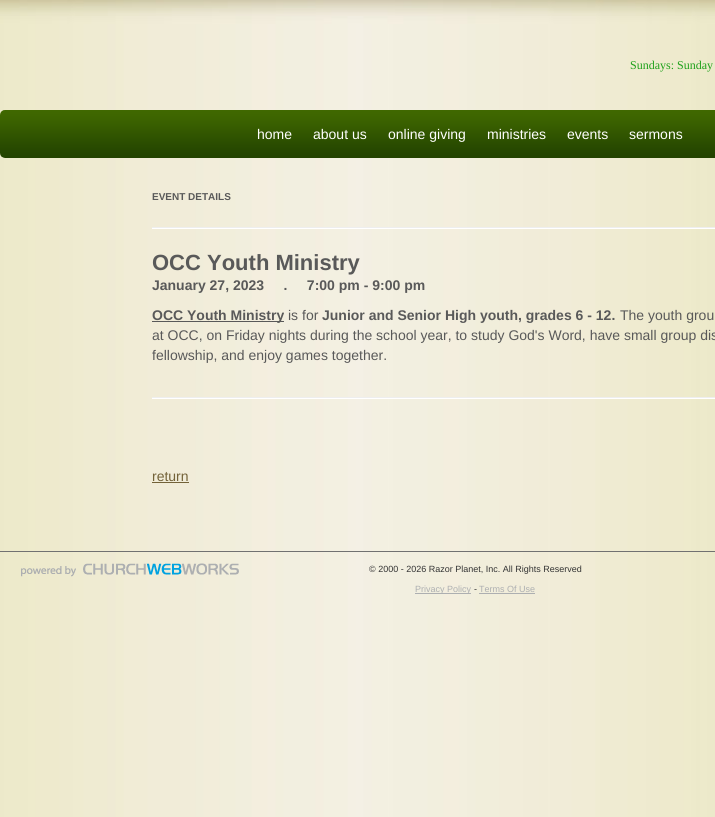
#include <cairo.h>
#include <math.h>
#include <stddef.h>


static void rgb(cairo_t *cr, int r, int g, int b)
{
	cairo_set_source_rgb(cr, r / 255.0, g / 255.0, b / 255.0);
}

static void face(cairo_t *cr, const char *family, double size, int italic, int bold)
{
	cairo_select_font_face(cr, family, italic ? CAIRO_FONT_SLANT_ITALIC : CAIRO_FONT_SLANT_NORMAL,
		bold ? CAIRO_FONT_WEIGHT_BOLD : CAIRO_FONT_WEIGHT_NORMAL);
	cairo_set_font_size(cr, size);
}

static void label(cairo_t *cr, double x, double y, const char *s)
{
	cairo_move_to(cr, x, y);
	cairo_show_text(cr, s);
}

static void rect(cairo_t *cr, double x, double y, double w, double h)
{
	cairo_rectangle(cr, x, y, w, h);
	cairo_fill(cr);
}

static void image(cairo_t *cr, const char *path, double x, double y, double w, double h)
{
	cairo_surface_t *image = cairo_image_surface_create_from_png(path);
	cairo_save(cr);
	cairo_set_source_surface(cr, image, x, y);
	cairo_rectangle(cr, x, y, w, h);
	cairo_fill(cr);
	cairo_restore(cr);
	cairo_surface_destroy(image);
}

static void draw(cairo_t *cr) {
	rgb(cr, 255, 255, 255);
	cairo_paint(cr);
	image(cr, "image0.png", 0, 0, 715, 817);
	face(cr, "Liberation Serif", 12, 0, 0);
	rgb(cr, 30, 161, 26);
	label(cr, 630, 69, "Sundays: Sunday");
	image(cr, "image1.png", 0, 110, 715, 48);
	face(cr, "Liberation Sans", 14, 0, 0);
	rgb(cr, 255, 255, 255);
	label(cr, 257, 139, "home");
	label(cr, 313, 139, "about us");
	label(cr, 388, 139, "online giving");
	label(cr, 487, 139, "ministries");
	label(cr, 567, 139, "events");
	label(cr, 629, 139, "sermons");
	face(cr, "Liberation Sans", 10, 0, 1);
	rgb(cr, 89, 89, 89);
	label(cr, 152, 200, "EVENT DETAILS");
	rgb(cr, 238, 238, 238);
	rect(cr, 152, 227, 563, 1);
	rgb(cr, 255, 255, 255);
	rect(cr, 152, 228, 563, 1);
	face(cr, "Liberation Sans", 22, 0, 1);
	rgb(cr, 89, 89, 89);
	label(cr, 152, 270, "OCC Youth Ministry");
	face(cr, "Liberation Sans", 14, 0, 1);
	label(cr, 152, 290, "January 27, 2023     .     7:00 pm - 9:00 pm");
	rect(cr, 152, 321, 132, 1);
	label(cr, 152, 320, "OCC Youth Ministry");
	face(cr, "Liberation Sans", 14, 0, 0);
	label(cr, 288, 320, "is for");
	face(cr, "Liberation Sans", 14, 0, 1);
	label(cr, 322, 320, "Junior and Senior High youth, grades 6 - 12.");
	face(cr, "Liberation Sans", 14, 0, 0);
	label(cr, 620, 320, "The youth grou");
	label(cr, 152, 340, "at OCC, on Friday nights during the school year, to study God's Word, have small group dis");
	label(cr, 152, 360, "fellowship, and enjoy games together.");
	rgb(cr, 238, 238, 238);
	rect(cr, 152, 397, 563, 1);
	rgb(cr, 255, 255, 255);
	rect(cr, 152, 398, 563, 1);
	rgb(cr, 115, 98, 56);
	label(cr, 152, 481, "return");
	rect(cr, 152, 482, 37, 1);
	rgb(cr, 113, 113, 113);
	rect(cr, 0, 551, 715, 1);
	image(cr, "image2.png", 21, 563, 218, 14);
	face(cr, "Liberation Sans", 9, 0, 0);
	rgb(cr, 51, 51, 51);
	label(cr, 369, 572, "© 2000 - 2026 Razor Planet, Inc. All Rights Reserved");
	rgb(cr, 173, 175, 177);
	rect(cr, 415, 593, 56, 1);
	label(cr, 415, 592, "Privacy Policy");
	rgb(cr, 51, 51, 51);
	label(cr, 474, 592, "-");
	rgb(cr, 173, 175, 177);
	label(cr, 479, 592, "Terms Of Use");
	rect(cr, 479, 593, 56, 1);
}

int main(void) {
	cairo_surface_t *surface = cairo_image_surface_create(CAIRO_FORMAT_RGB24, 715, 817);
	cairo_t *cr = cairo_create(surface);
	cairo_font_options_t *options = cairo_font_options_create();
	cairo_font_options_set_hint_metrics(options, CAIRO_HINT_METRICS_OFF);
	cairo_font_options_set_hint_style(options, CAIRO_HINT_STYLE_NONE);
	cairo_set_font_options(cr, options);
	cairo_set_miter_limit(cr, 4);
	draw(cr);
	cairo_surface_write_to_png(surface, "render.png");
	cairo_font_options_destroy(options);
	cairo_destroy(cr);
	cairo_surface_destroy(surface);
	return 0;
}
